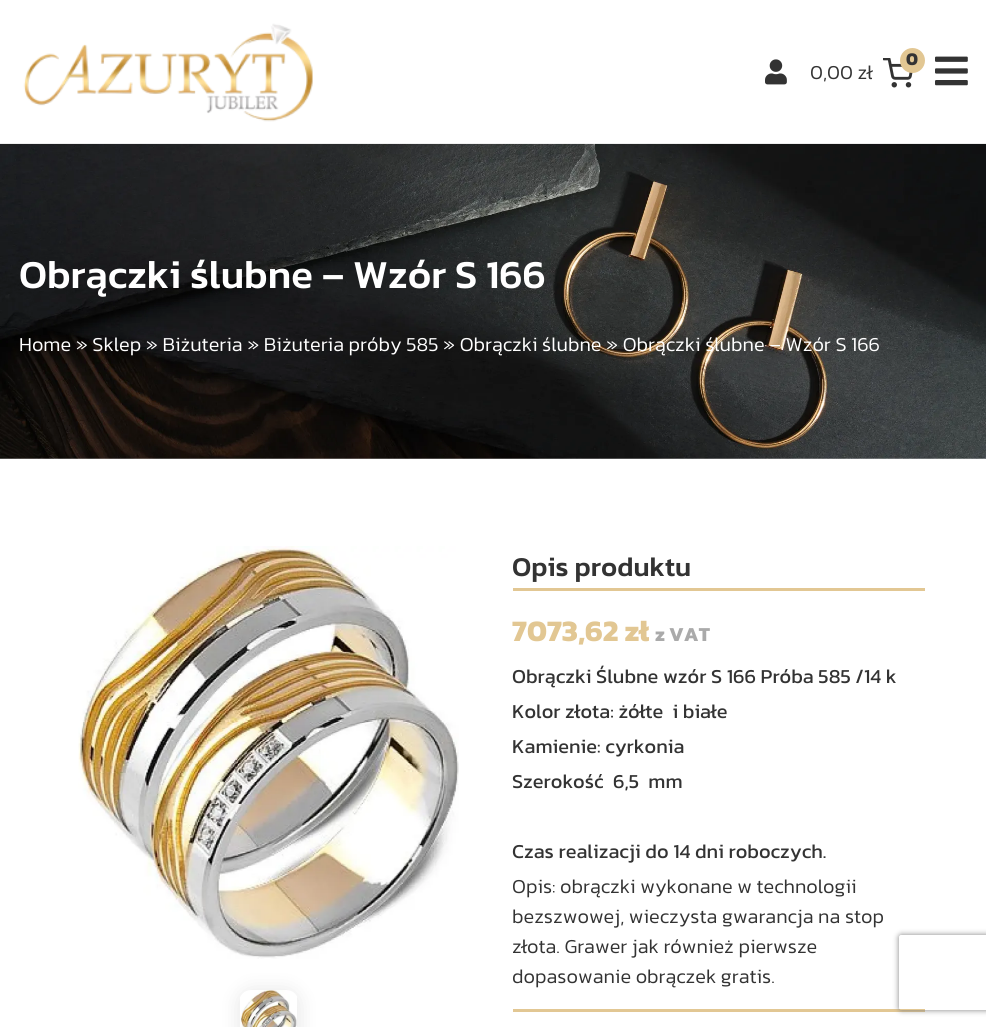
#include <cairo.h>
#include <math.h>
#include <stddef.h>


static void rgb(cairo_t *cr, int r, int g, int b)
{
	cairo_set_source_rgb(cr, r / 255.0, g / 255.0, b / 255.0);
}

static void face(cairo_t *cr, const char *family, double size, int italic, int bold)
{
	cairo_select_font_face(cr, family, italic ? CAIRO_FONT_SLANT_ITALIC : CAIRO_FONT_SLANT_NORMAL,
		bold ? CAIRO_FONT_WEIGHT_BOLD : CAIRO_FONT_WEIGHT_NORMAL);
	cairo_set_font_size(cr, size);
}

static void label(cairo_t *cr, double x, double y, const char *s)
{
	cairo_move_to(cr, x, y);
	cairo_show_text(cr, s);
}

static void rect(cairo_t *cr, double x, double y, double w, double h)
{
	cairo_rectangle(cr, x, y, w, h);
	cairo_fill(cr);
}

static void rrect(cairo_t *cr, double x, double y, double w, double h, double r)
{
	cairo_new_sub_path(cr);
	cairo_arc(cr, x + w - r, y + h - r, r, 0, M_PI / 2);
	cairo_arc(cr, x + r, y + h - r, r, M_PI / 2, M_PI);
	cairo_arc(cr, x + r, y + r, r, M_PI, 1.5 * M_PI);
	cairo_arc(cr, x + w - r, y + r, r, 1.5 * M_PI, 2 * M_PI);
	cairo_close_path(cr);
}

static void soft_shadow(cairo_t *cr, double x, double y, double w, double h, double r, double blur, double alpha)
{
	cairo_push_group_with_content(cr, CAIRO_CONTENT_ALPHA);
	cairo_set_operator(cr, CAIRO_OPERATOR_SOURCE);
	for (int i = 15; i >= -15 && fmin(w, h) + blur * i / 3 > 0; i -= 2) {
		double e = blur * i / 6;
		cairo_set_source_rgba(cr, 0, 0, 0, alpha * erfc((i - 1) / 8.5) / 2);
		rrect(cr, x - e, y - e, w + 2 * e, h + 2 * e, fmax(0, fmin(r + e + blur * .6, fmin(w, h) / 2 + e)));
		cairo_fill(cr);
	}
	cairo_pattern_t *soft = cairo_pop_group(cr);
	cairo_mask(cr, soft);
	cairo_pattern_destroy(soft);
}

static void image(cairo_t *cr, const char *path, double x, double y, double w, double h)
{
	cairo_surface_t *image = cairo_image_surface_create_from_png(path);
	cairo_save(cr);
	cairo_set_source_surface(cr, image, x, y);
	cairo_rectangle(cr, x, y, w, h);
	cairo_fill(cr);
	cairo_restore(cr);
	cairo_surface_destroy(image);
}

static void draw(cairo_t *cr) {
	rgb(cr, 255, 255, 255);
	cairo_paint(cr);
	image(cr, "image4.png", 0, 143, 986, 316);
	cairo_set_source_rgba(cr, 1, 1, 1, 0.7);
	rect(cr, 0, 143, 986, 1);
	image(cr, "image0.png", 23, 23, 290, 99);
	image(cr, "image1.png", 765, 59, 22, 26);
	image(cr, "image2.png", 883, 58, 30, 30);
	rgb(cr, 226, 199, 147);
	cairo_arc(cr, 912.5, 60.5, 11, 0, 2 * M_PI);
	cairo_fill_preserve(cr);
	cairo_set_line_width(cr, 3);
	cairo_stroke(cr);
	face(cr, "Kanit", 18, 0, 1);
	rgb(cr, 51, 51, 51);
	label(cr, 906, 65, "0");
	face(cr, "Kanit Light", 20, 0, 0);
	label(cr, 810, 79, "0,00 zł");
	image(cr, "image3.png", 935, 56, 33, 30);
	face(cr, "Kanit Medium", 40, 0, 0);
	rgb(cr, 255, 255, 255);
	label(cr, 19, 288, "Obrączki ślubne – Wzór S 166");
	face(cr, "Kanit Light", 20, 0, 0);
	label(cr, 19, 351, "Home » Sklep » Biżuteria » Biżuteria próby 585 » Obrączki ślubne » Obrączki ślubne – Wzór S 166");
	image(cr, "image5.png", 78, 546, 381, 413);
	rgb(cr, 0, 0, 0);
	soft_shadow(cr, 239, 990, 60, 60, 13, 9.5, 0.1);
	image(cr, "image6.png", 240, 990, 57, 37);
	rgb(cr, 226, 199, 147);
	rect(cr, 513, 588, 412, 3);
	face(cr, "Kanit Medium", 27.5, 0, 0);
	rgb(cr, 51, 51, 51);
	label(cr, 512, 576, "Opis produktu");
	face(cr, "Kanit", 30, 0, 1);
	rgb(cr, 226, 199, 147);
	label(cr, 512, 641, "7073,62 zł");
	face(cr, "Kanit", 20, 0, 1);
	rgb(cr, 170, 170, 170);
	label(cr, 655, 641, "z VAT");
	rgb(cr, 226, 199, 147);
	rect(cr, 513, 1009, 412, 3);
	face(cr, "Kanit", 20, 0, 0);
	rgb(cr, 51, 51, 51);
	label(cr, 512, 683, "Obrączki Ślubne wzór S 166 Próba 585 /14 k");
	label(cr, 512, 718, "Kolor złota: żółte  i białe");
	label(cr, 512, 753, "Kamienie: cyrkonia");
	label(cr, 512, 788, "Szerokość  6,5  mm");
	label(cr, 512, 858, "Czas realizacji do 14 dni roboczych.");
	face(cr, "Kanit Light", 20, 0, 0);
	label(cr, 512, 893, "Opis: obrączki wykonane w technologii");
	label(cr, 512, 923, "bezszwowej, wieczysta gwarancja na stop");
	label(cr, 512, 953, "złota. Grawer jak również pierwsze");
	label(cr, 512, 983, "dopasowanie obrączek gratis.");
	cairo_save(cr);
	cairo_set_fill_rule(cr, CAIRO_FILL_RULE_EVEN_ODD);
	cairo_new_path(cr);
	cairo_move_to(cr, 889, 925);
	cairo_line_to(cr, 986, 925);
	cairo_line_to(cr, 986, 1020);
	cairo_line_to(cr, 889, 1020);
	cairo_close_path(cr);
	cairo_move_to(cr, 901.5, 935);
	cairo_line_to(cr, 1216.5, 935);
	cairo_curve_to(cr, 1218, 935, 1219, 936, 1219, 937.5);
	cairo_line_to(cr, 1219, 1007.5);
	cairo_curve_to(cr, 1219, 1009, 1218, 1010, 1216.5, 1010);
	cairo_line_to(cr, 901.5, 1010);
	cairo_curve_to(cr, 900, 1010, 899, 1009, 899, 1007.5);
	cairo_line_to(cr, 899, 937.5);
	cairo_curve_to(cr, 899, 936, 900, 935, 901.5, 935);
	cairo_close_path(cr);
	cairo_clip(cr);
	rgb(cr, 128, 128, 128);
	soft_shadow(cr, 899, 935, 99, 75, 2.5, 3, 1);
	cairo_restore(cr);
}

int main(void) {
	cairo_surface_t *surface = cairo_image_surface_create(CAIRO_FORMAT_RGB24, 986, 1027);
	cairo_t *cr = cairo_create(surface);
	cairo_font_options_t *options = cairo_font_options_create();
	cairo_font_options_set_hint_metrics(options, CAIRO_HINT_METRICS_OFF);
	cairo_font_options_set_hint_style(options, CAIRO_HINT_STYLE_NONE);
	cairo_set_font_options(cr, options);
	cairo_set_miter_limit(cr, 4);
	draw(cr);
	cairo_surface_write_to_png(surface, "render.png");
	cairo_font_options_destroy(options);
	cairo_destroy(cr);
	cairo_surface_destroy(surface);
	return 0;
}
